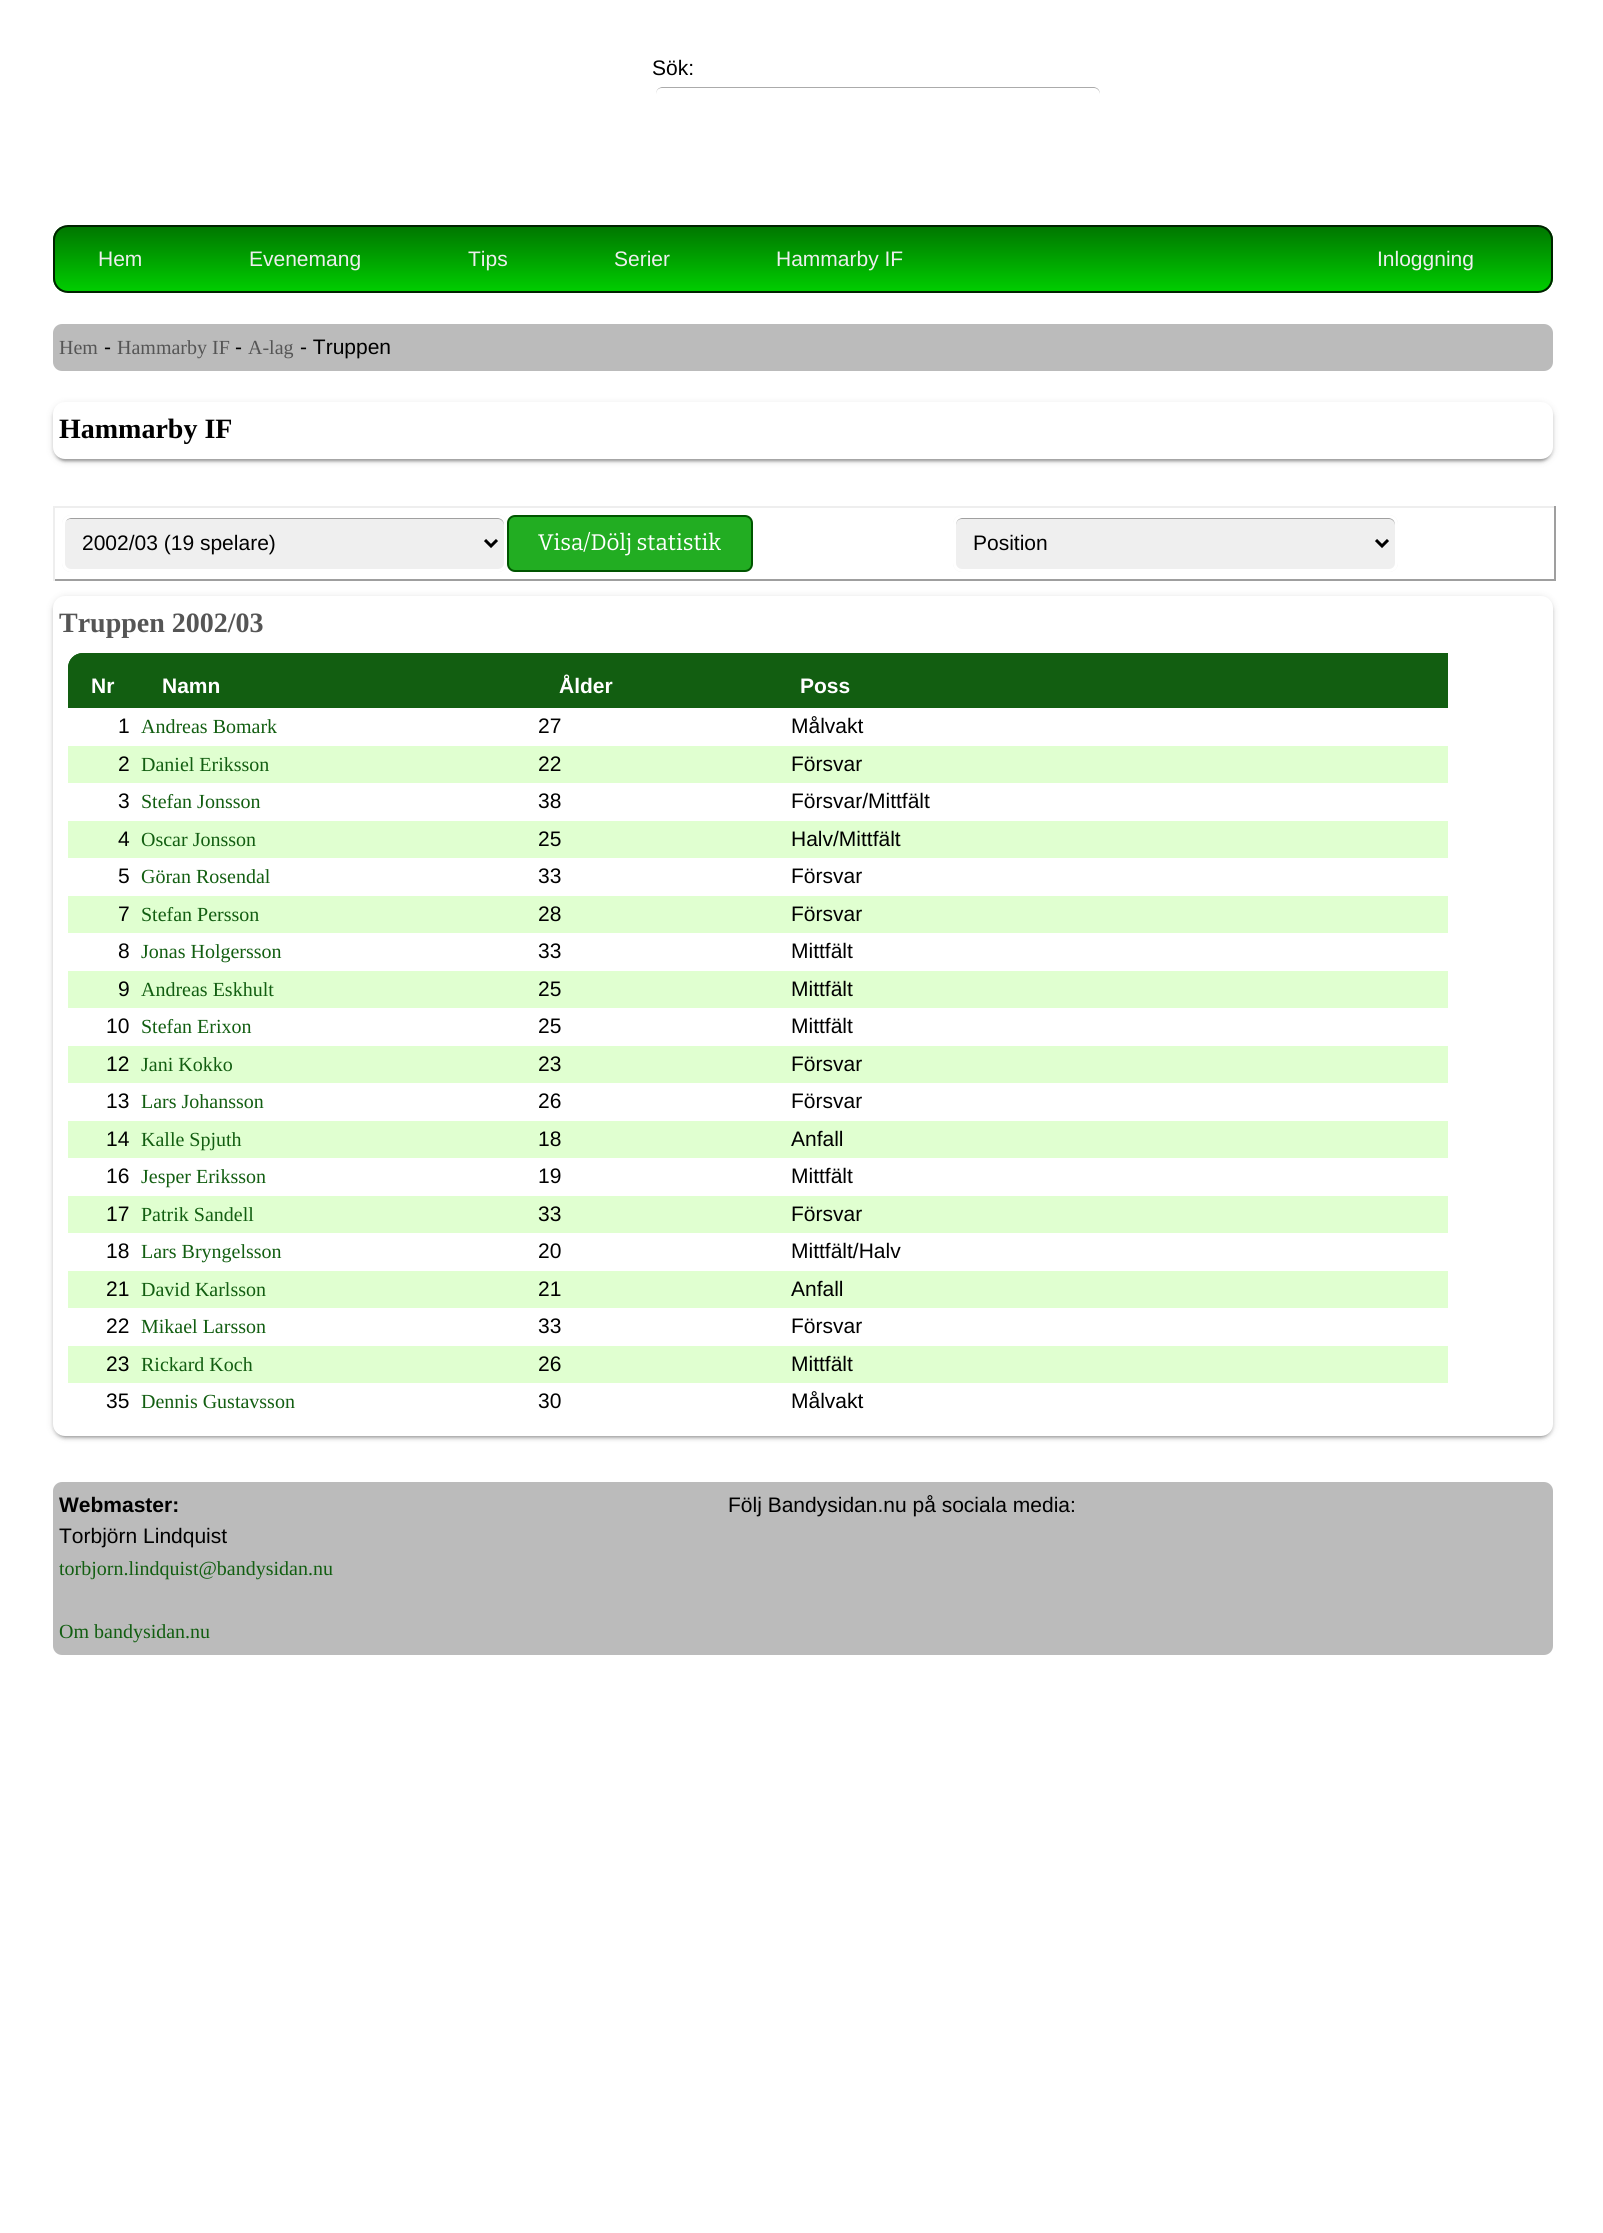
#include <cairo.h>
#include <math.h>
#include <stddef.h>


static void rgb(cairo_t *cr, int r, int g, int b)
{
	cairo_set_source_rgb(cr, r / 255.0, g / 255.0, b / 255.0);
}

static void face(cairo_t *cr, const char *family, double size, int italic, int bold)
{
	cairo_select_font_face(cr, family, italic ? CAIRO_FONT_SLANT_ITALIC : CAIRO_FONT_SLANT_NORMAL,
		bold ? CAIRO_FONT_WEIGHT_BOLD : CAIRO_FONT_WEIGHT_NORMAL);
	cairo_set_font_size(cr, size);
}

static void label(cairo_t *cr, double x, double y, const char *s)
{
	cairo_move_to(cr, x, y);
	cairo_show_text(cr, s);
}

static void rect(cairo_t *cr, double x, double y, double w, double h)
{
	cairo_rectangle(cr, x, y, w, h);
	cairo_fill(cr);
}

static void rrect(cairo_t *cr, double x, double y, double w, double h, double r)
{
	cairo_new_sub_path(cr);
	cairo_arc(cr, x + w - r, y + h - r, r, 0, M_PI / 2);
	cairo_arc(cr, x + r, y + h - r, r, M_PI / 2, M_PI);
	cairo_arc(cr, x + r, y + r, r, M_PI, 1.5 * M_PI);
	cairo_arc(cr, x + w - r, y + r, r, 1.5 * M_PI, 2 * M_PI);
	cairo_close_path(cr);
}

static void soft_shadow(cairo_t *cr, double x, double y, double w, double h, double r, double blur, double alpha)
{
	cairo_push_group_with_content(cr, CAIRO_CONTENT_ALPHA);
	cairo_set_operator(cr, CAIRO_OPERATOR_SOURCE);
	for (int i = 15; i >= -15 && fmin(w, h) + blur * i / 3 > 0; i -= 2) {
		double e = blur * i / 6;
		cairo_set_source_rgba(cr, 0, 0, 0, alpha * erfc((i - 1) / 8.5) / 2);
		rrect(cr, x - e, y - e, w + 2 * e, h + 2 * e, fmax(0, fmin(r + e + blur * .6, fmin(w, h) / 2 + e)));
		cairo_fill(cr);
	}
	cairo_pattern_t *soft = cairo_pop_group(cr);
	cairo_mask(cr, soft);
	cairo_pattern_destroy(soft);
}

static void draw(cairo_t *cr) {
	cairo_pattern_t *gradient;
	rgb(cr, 255, 255, 255);
	cairo_paint(cr);
	face(cr, "Liberation Sans", 21, 0, 0);
	rgb(cr, 0, 0, 0);
	label(cr, 652, 75, "Sök:");
	rgb(cr, 171, 171, 171);
	cairo_new_path(cr);
	cairo_move_to(cr, 662, 88);
	cairo_line_to(cr, 1094, 88);
	cairo_curve_to(cr, 1097, 88, 1100, 91, 1100, 94);
	cairo_line_to(cr, 1100, 93);
	cairo_curve_to(cr, 1100, 90, 1097, 87, 1094, 87);
	cairo_line_to(cr, 662, 87);
	cairo_curve_to(cr, 659, 87, 656, 90, 656, 93);
	cairo_line_to(cr, 656, 94);
	cairo_curve_to(cr, 656, 91, 658, 88, 662, 88);
	cairo_close_path(cr);
	cairo_fill(cr);
	rrect(cr, 654.5, 85.5, 447, 51, 7.5);
	rgb(cr, 255, 255, 255);
	cairo_set_line_width(cr, 3);
	cairo_stroke(cr);
	cairo_save(cr);
	rrect(cr, 53, 225, 1500, 68, 15);
	cairo_clip(cr);
	gradient = cairo_pattern_create_linear(54, 227, 54, 291);
	cairo_pattern_add_color_stop_rgba(gradient, 0, 0, 0.467, 0, 1);
	cairo_pattern_add_color_stop_rgba(gradient, 1, 0, 0.804, 0, 1);
	cairo_set_source(cr, gradient);
	cairo_pattern_destroy(gradient);
	rect(cr, 53, 227, 1500, 64);
	cairo_restore(cr);
	rrect(cr, 54, 226, 1498, 66, 14);
	rgb(cr, 0, 34, 0);
	cairo_set_line_width(cr, 2);
	cairo_stroke(cr);
	rgb(cr, 238, 238, 238);
	label(cr, 98, 266, "Hem");
	label(cr, 249, 266, "Evenemang");
	label(cr, 468, 266, "Tips");
	label(cr, 614, 266, "Serier");
	label(cr, 776, 266, "Hammarby IF");
	label(cr, 1377, 266, "Inloggning");
	rgb(cr, 187, 187, 187);
	rrect(cr, 53, 324, 1500, 47, 9);
	cairo_fill(cr);
	face(cr, "Liberation Serif", 20, 0, 0);
	rgb(cr, 85, 85, 85);
	label(cr, 59, 354, "Hem");
	face(cr, "Liberation Sans", 21, 0, 0);
	rgb(cr, 0, 0, 0);
	label(cr, 104, 354, "-");
	face(cr, "Liberation Serif", 20, 0, 0);
	rgb(cr, 85, 85, 85);
	label(cr, 117, 354, "Hammarby IF");
	face(cr, "Liberation Sans", 21, 0, 0);
	rgb(cr, 0, 0, 0);
	label(cr, 235, 354, "-");
	face(cr, "Liberation Serif", 20, 0, 0);
	rgb(cr, 85, 85, 85);
	label(cr, 248, 354, "A-lag");
	face(cr, "Liberation Sans", 21, 0, 0);
	rgb(cr, 0, 0, 0);
	label(cr, 300, 354, "- Truppen");
	rgb(cr, 0, 0, 0);
	soft_shadow(cr, 56, 410, 1494, 51, 9, 1, 0.2);
	soft_shadow(cr, 53, 404, 1500, 57, 12, 4, 0.12);
	soft_shadow(cr, 53, 405, 1500, 57, 12, 1.5, 0.14);
	rgb(cr, 255, 255, 255);
	rrect(cr, 53, 402, 1500, 57, 12);
	cairo_fill(cr);
	face(cr, "Liberation Serif", 28, 0, 1);
	rgb(cr, 0, 0, 0);
	label(cr, 59, 438, "Hammarby IF");
	rgb(cr, 238, 238, 238);
	rect(cr, 53, 506, 1503, 2);
	rgb(cr, 159, 159, 159);
	rect(cr, 1554, 506, 2, 75);
	rect(cr, 53, 579, 1503, 2);
	rgb(cr, 238, 238, 238);
	rect(cr, 53, 506, 2, 75);
	rgb(cr, 239, 239, 239);
	rrect(cr, 62, 515, 445, 57, 9);
	cairo_fill(cr);
	rgb(cr, 160, 160, 160);
	cairo_new_path(cr);
	cairo_move_to(cr, 70, 519);
	cairo_line_to(cr, 498, 519);
	cairo_curve_to(cr, 501, 519, 504, 522, 504, 525);
	cairo_line_to(cr, 504, 524);
	cairo_curve_to(cr, 504, 521, 501, 518, 498, 518);
	cairo_line_to(cr, 71, 518);
	cairo_curve_to(cr, 69, 518, 67, 519, 66, 521);
	cairo_curve_to(cr, 67, 520, 69, 519, 70, 519);
	cairo_close_path(cr);
	cairo_fill(cr);
	rrect(cr, 63.5, 516.5, 442, 54, 7.5);
	rgb(cr, 255, 255, 255);
	cairo_set_line_width(cr, 3);
	cairo_stroke(cr);
	cairo_new_path(cr);
	cairo_move_to(cr, 485, 540);
	cairo_line_to(cr, 491, 546);
	cairo_line_to(cr, 497, 540);
	rgb(cr, 0, 0, 0);
	cairo_stroke(cr);
	face(cr, "Liberation Sans", 21, 0, 0);
	label(cr, 82, 550, "2002/03 (19 spelare)");
	rgb(cr, 34, 173, 34);
	rrect(cr, 508, 516, 244, 55, 7);
	cairo_fill_preserve(cr);
	rgb(cr, 0, 85, 0);
	cairo_set_line_width(cr, 2);
	cairo_stroke(cr);
	face(cr, "Bitter", 22.5, 0, 0);
	rgb(cr, 255, 255, 255);
	label(cr, 538, 550, "Visa/Dölj statistik");
	rgb(cr, 239, 239, 239);
	rrect(cr, 953, 515, 445, 57, 9);
	cairo_fill(cr);
	rgb(cr, 160, 160, 160);
	cairo_new_path(cr);
	cairo_move_to(cr, 962, 519);
	cairo_line_to(cr, 1389, 519);
	cairo_curve_to(cr, 1392, 519, 1395, 522, 1395, 525);
	cairo_line_to(cr, 1395, 524);
	cairo_curve_to(cr, 1395, 521, 1392, 518, 1389, 518);
	cairo_line_to(cr, 962, 518);
	cairo_curve_to(cr, 959, 518, 956, 521, 956, 524);
	cairo_line_to(cr, 956, 525);
	cairo_curve_to(cr, 956, 522, 958, 519, 962, 519);
	cairo_close_path(cr);
	cairo_fill(cr);
	rrect(cr, 954.5, 516.5, 442, 54, 7.5);
	rgb(cr, 255, 255, 255);
	cairo_set_line_width(cr, 3);
	cairo_stroke(cr);
	cairo_new_path(cr);
	cairo_move_to(cr, 1376, 540);
	cairo_line_to(cr, 1382, 546);
	cairo_line_to(cr, 1388, 540);
	rgb(cr, 0, 0, 0);
	cairo_stroke(cr);
	face(cr, "Liberation Sans", 21, 0, 0);
	label(cr, 973, 550, "Position");
	rgb(cr, 0, 0, 0);
	soft_shadow(cr, 56, 603, 1494, 834, 9, 1, 0.2);
	soft_shadow(cr, 53, 597, 1500, 840, 12, 4, 0.12);
	soft_shadow(cr, 53, 599, 1500, 840, 12, 1.5, 0.14);
	rgb(cr, 255, 255, 255);
	rrect(cr, 53, 596, 1500, 840, 12);
	cairo_fill(cr);
	face(cr, "Liberation Serif", 28, 0, 1);
	rgb(cr, 85, 85, 85);
	label(cr, 59, 632, "Truppen 2002/03");
	rgb(cr, 18, 94, 17);
	cairo_new_path(cr);
	cairo_move_to(cr, 83, 653);
	cairo_line_to(cr, 1448, 653);
	cairo_line_to(cr, 1448, 708);
	cairo_line_to(cr, 68, 708);
	cairo_line_to(cr, 68, 668);
	cairo_curve_to(cr, 68, 659.5, 74.5, 653, 83, 653);
	cairo_close_path(cr);
	cairo_fill(cr);
	cairo_new_path(cr);
	cairo_move_to(cr, 83, 653);
	cairo_line_to(cr, 138, 653);
	cairo_line_to(cr, 138, 708);
	cairo_line_to(cr, 68, 708);
	cairo_line_to(cr, 68, 668);
	cairo_curve_to(cr, 68, 659.5, 74.5, 653, 83, 653);
	cairo_close_path(cr);
	cairo_fill(cr);
	face(cr, "Liberation Sans", 21, 0, 1);
	rgb(cr, 255, 255, 255);
	label(cr, 91, 693, "Nr");
	label(cr, 162, 693, "Namn");
	label(cr, 559, 693, "Ålder");
	label(cr, 800, 693, "Poss");
	face(cr, "Liberation Sans", 21, 0, 0);
	rgb(cr, 0, 0, 0);
	label(cr, 118, 733, "1");
	face(cr, "Liberation Serif", 20, 0, 0);
	rgb(cr, 18, 94, 17);
	label(cr, 141, 733, "Andreas Bomark");
	face(cr, "Liberation Sans", 21, 0, 0);
	rgb(cr, 0, 0, 0);
	label(cr, 538, 733, "27");
	label(cr, 791, 733, "Målvakt");
	rgb(cr, 224, 255, 208);
	rect(cr, 68, 746, 1380, 37);
	rgb(cr, 0, 0, 0);
	label(cr, 118, 771, "2");
	face(cr, "Liberation Serif", 20, 0, 0);
	rgb(cr, 18, 94, 17);
	label(cr, 141, 771, "Daniel Eriksson");
	face(cr, "Liberation Sans", 21, 0, 0);
	rgb(cr, 0, 0, 0);
	label(cr, 538, 771, "22");
	label(cr, 791, 771, "Försvar");
	label(cr, 118, 808, "3");
	face(cr, "Liberation Serif", 20, 0, 0);
	rgb(cr, 18, 94, 17);
	label(cr, 141, 808, "Stefan Jonsson");
	face(cr, "Liberation Sans", 21, 0, 0);
	rgb(cr, 0, 0, 0);
	label(cr, 538, 808, "38");
	label(cr, 791, 808, "Försvar/Mittfält");
	rgb(cr, 224, 255, 208);
	rect(cr, 68, 821, 1380, 37);
	rgb(cr, 0, 0, 0);
	label(cr, 118, 846, "4");
	face(cr, "Liberation Serif", 20, 0, 0);
	rgb(cr, 18, 94, 17);
	label(cr, 141, 846, "Oscar Jonsson");
	face(cr, "Liberation Sans", 21, 0, 0);
	rgb(cr, 0, 0, 0);
	label(cr, 538, 846, "25");
	label(cr, 791, 846, "Halv/Mittfält");
	label(cr, 118, 883, "5");
	face(cr, "Liberation Serif", 20, 0, 0);
	rgb(cr, 18, 94, 17);
	label(cr, 141, 883, "Göran Rosendal");
	face(cr, "Liberation Sans", 21, 0, 0);
	rgb(cr, 0, 0, 0);
	label(cr, 538, 883, "33");
	label(cr, 791, 883, "Försvar");
	rgb(cr, 224, 255, 208);
	rect(cr, 68, 896, 1380, 37);
	rgb(cr, 0, 0, 0);
	label(cr, 118, 921, "7");
	face(cr, "Liberation Serif", 20, 0, 0);
	rgb(cr, 18, 94, 17);
	label(cr, 141, 921, "Stefan Persson");
	face(cr, "Liberation Sans", 21, 0, 0);
	rgb(cr, 0, 0, 0);
	label(cr, 538, 921, "28");
	label(cr, 791, 921, "Försvar");
	label(cr, 118, 958, "8");
	face(cr, "Liberation Serif", 20, 0, 0);
	rgb(cr, 18, 94, 17);
	label(cr, 141, 958, "Jonas Holgersson");
	face(cr, "Liberation Sans", 21, 0, 0);
	rgb(cr, 0, 0, 0);
	label(cr, 538, 958, "33");
	label(cr, 791, 958, "Mittfält");
	rgb(cr, 224, 255, 208);
	rect(cr, 68, 971, 1380, 37);
	rgb(cr, 0, 0, 0);
	label(cr, 118, 996, "9");
	face(cr, "Liberation Serif", 20, 0, 0);
	rgb(cr, 18, 94, 17);
	label(cr, 141, 996, "Andreas Eskhult");
	face(cr, "Liberation Sans", 21, 0, 0);
	rgb(cr, 0, 0, 0);
	label(cr, 538, 996, "25");
	label(cr, 791, 996, "Mittfält");
	label(cr, 106, 1033, "10");
	face(cr, "Liberation Serif", 20, 0, 0);
	rgb(cr, 18, 94, 17);
	label(cr, 141, 1033, "Stefan Erixon");
	face(cr, "Liberation Sans", 21, 0, 0);
	rgb(cr, 0, 0, 0);
	label(cr, 538, 1033, "25");
	label(cr, 791, 1033, "Mittfält");
	rgb(cr, 224, 255, 208);
	rect(cr, 68, 1046, 1380, 37);
	rgb(cr, 0, 0, 0);
	label(cr, 106, 1071, "12");
	face(cr, "Liberation Serif", 20, 0, 0);
	rgb(cr, 18, 94, 17);
	label(cr, 141, 1071, "Jani Kokko");
	face(cr, "Liberation Sans", 21, 0, 0);
	rgb(cr, 0, 0, 0);
	label(cr, 538, 1071, "23");
	label(cr, 791, 1071, "Försvar");
	label(cr, 106, 1108, "13");
	face(cr, "Liberation Serif", 20, 0, 0);
	rgb(cr, 18, 94, 17);
	label(cr, 141, 1108, "Lars Johansson");
	face(cr, "Liberation Sans", 21, 0, 0);
	rgb(cr, 0, 0, 0);
	label(cr, 538, 1108, "26");
	label(cr, 791, 1108, "Försvar");
	rgb(cr, 224, 255, 208);
	rect(cr, 68, 1121, 1380, 37);
	rgb(cr, 0, 0, 0);
	label(cr, 106, 1146, "14");
	face(cr, "Liberation Serif", 20, 0, 0);
	rgb(cr, 18, 94, 17);
	label(cr, 141, 1146, "Kalle Spjuth");
	face(cr, "Liberation Sans", 21, 0, 0);
	rgb(cr, 0, 0, 0);
	label(cr, 538, 1146, "18");
	label(cr, 791, 1146, "Anfall");
	label(cr, 106, 1183, "16");
	face(cr, "Liberation Serif", 20, 0, 0);
	rgb(cr, 18, 94, 17);
	label(cr, 141, 1183, "Jesper Eriksson");
	face(cr, "Liberation Sans", 21, 0, 0);
	rgb(cr, 0, 0, 0);
	label(cr, 538, 1183, "19");
	label(cr, 791, 1183, "Mittfält");
	rgb(cr, 224, 255, 208);
	rect(cr, 68, 1196, 1380, 37);
	rgb(cr, 0, 0, 0);
	label(cr, 106, 1221, "17");
	face(cr, "Liberation Serif", 20, 0, 0);
	rgb(cr, 18, 94, 17);
	label(cr, 141, 1221, "Patrik Sandell");
	face(cr, "Liberation Sans", 21, 0, 0);
	rgb(cr, 0, 0, 0);
	label(cr, 538, 1221, "33");
	label(cr, 791, 1221, "Försvar");
	label(cr, 106, 1258, "18");
	face(cr, "Liberation Serif", 20, 0, 0);
	rgb(cr, 18, 94, 17);
	label(cr, 141, 1258, "Lars Bryngelsson");
	face(cr, "Liberation Sans", 21, 0, 0);
	rgb(cr, 0, 0, 0);
	label(cr, 538, 1258, "20");
	label(cr, 791, 1258, "Mittfält/Halv");
	rgb(cr, 224, 255, 208);
	rect(cr, 68, 1271, 1380, 37);
	rgb(cr, 0, 0, 0);
	label(cr, 106, 1296, "21");
	face(cr, "Liberation Serif", 20, 0, 0);
	rgb(cr, 18, 94, 17);
	label(cr, 141, 1296, "David Karlsson");
	face(cr, "Liberation Sans", 21, 0, 0);
	rgb(cr, 0, 0, 0);
	label(cr, 538, 1296, "21");
	label(cr, 791, 1296, "Anfall");
	label(cr, 106, 1333, "22");
	face(cr, "Liberation Serif", 20, 0, 0);
	rgb(cr, 18, 94, 17);
	label(cr, 141, 1333, "Mikael Larsson");
	face(cr, "Liberation Sans", 21, 0, 0);
	rgb(cr, 0, 0, 0);
	label(cr, 538, 1333, "33");
	label(cr, 791, 1333, "Försvar");
	rgb(cr, 224, 255, 208);
	rect(cr, 68, 1346, 1380, 37);
	rgb(cr, 0, 0, 0);
	label(cr, 106, 1371, "23");
	face(cr, "Liberation Serif", 20, 0, 0);
	rgb(cr, 18, 94, 17);
	label(cr, 141, 1371, "Rickard Koch");
	face(cr, "Liberation Sans", 21, 0, 0);
	rgb(cr, 0, 0, 0);
	label(cr, 538, 1371, "26");
	label(cr, 791, 1371, "Mittfält");
	label(cr, 106, 1408, "35");
	face(cr, "Liberation Serif", 20, 0, 0);
	rgb(cr, 18, 94, 17);
	label(cr, 141, 1408, "Dennis Gustavsson");
	face(cr, "Liberation Sans", 21, 0, 0);
	rgb(cr, 0, 0, 0);
	label(cr, 538, 1408, "30");
	label(cr, 791, 1408, "Målvakt");
	rgb(cr, 187, 187, 187);
	rrect(cr, 53, 1482, 1500, 173, 9);
	cairo_fill(cr);
	face(cr, "Liberation Sans", 21, 0, 1);
	rgb(cr, 0, 0, 0);
	label(cr, 59, 1512, "Webmaster:");
	face(cr, "Liberation Sans", 21, 0, 0);
	label(cr, 59, 1543, "Torbjörn Lindquist");
	face(cr, "Liberation Serif", 20, 0, 0);
	rgb(cr, 18, 94, 17);
	label(cr, 59, 1575, "torbjorn.lindquist@bandysidan.nu");
	label(cr, 59, 1638, "Om bandysidan.nu");
	face(cr, "Liberation Sans", 21, 0, 0);
	rgb(cr, 0, 0, 0);
	label(cr, 728, 1512, "Följ Bandysidan.nu på sociala media:");
}

int main(void) {
	cairo_surface_t *surface = cairo_image_surface_create(CAIRO_FORMAT_RGB24, 1603, 2233);
	cairo_t *cr = cairo_create(surface);
	cairo_font_options_t *options = cairo_font_options_create();
	cairo_font_options_set_hint_metrics(options, CAIRO_HINT_METRICS_OFF);
	cairo_font_options_set_hint_style(options, CAIRO_HINT_STYLE_NONE);
	cairo_set_font_options(cr, options);
	cairo_set_miter_limit(cr, 4);
	draw(cr);
	cairo_surface_write_to_png(surface, "render.png");
	cairo_font_options_destroy(options);
	cairo_destroy(cr);
	cairo_surface_destroy(surface);
	return 0;
}
